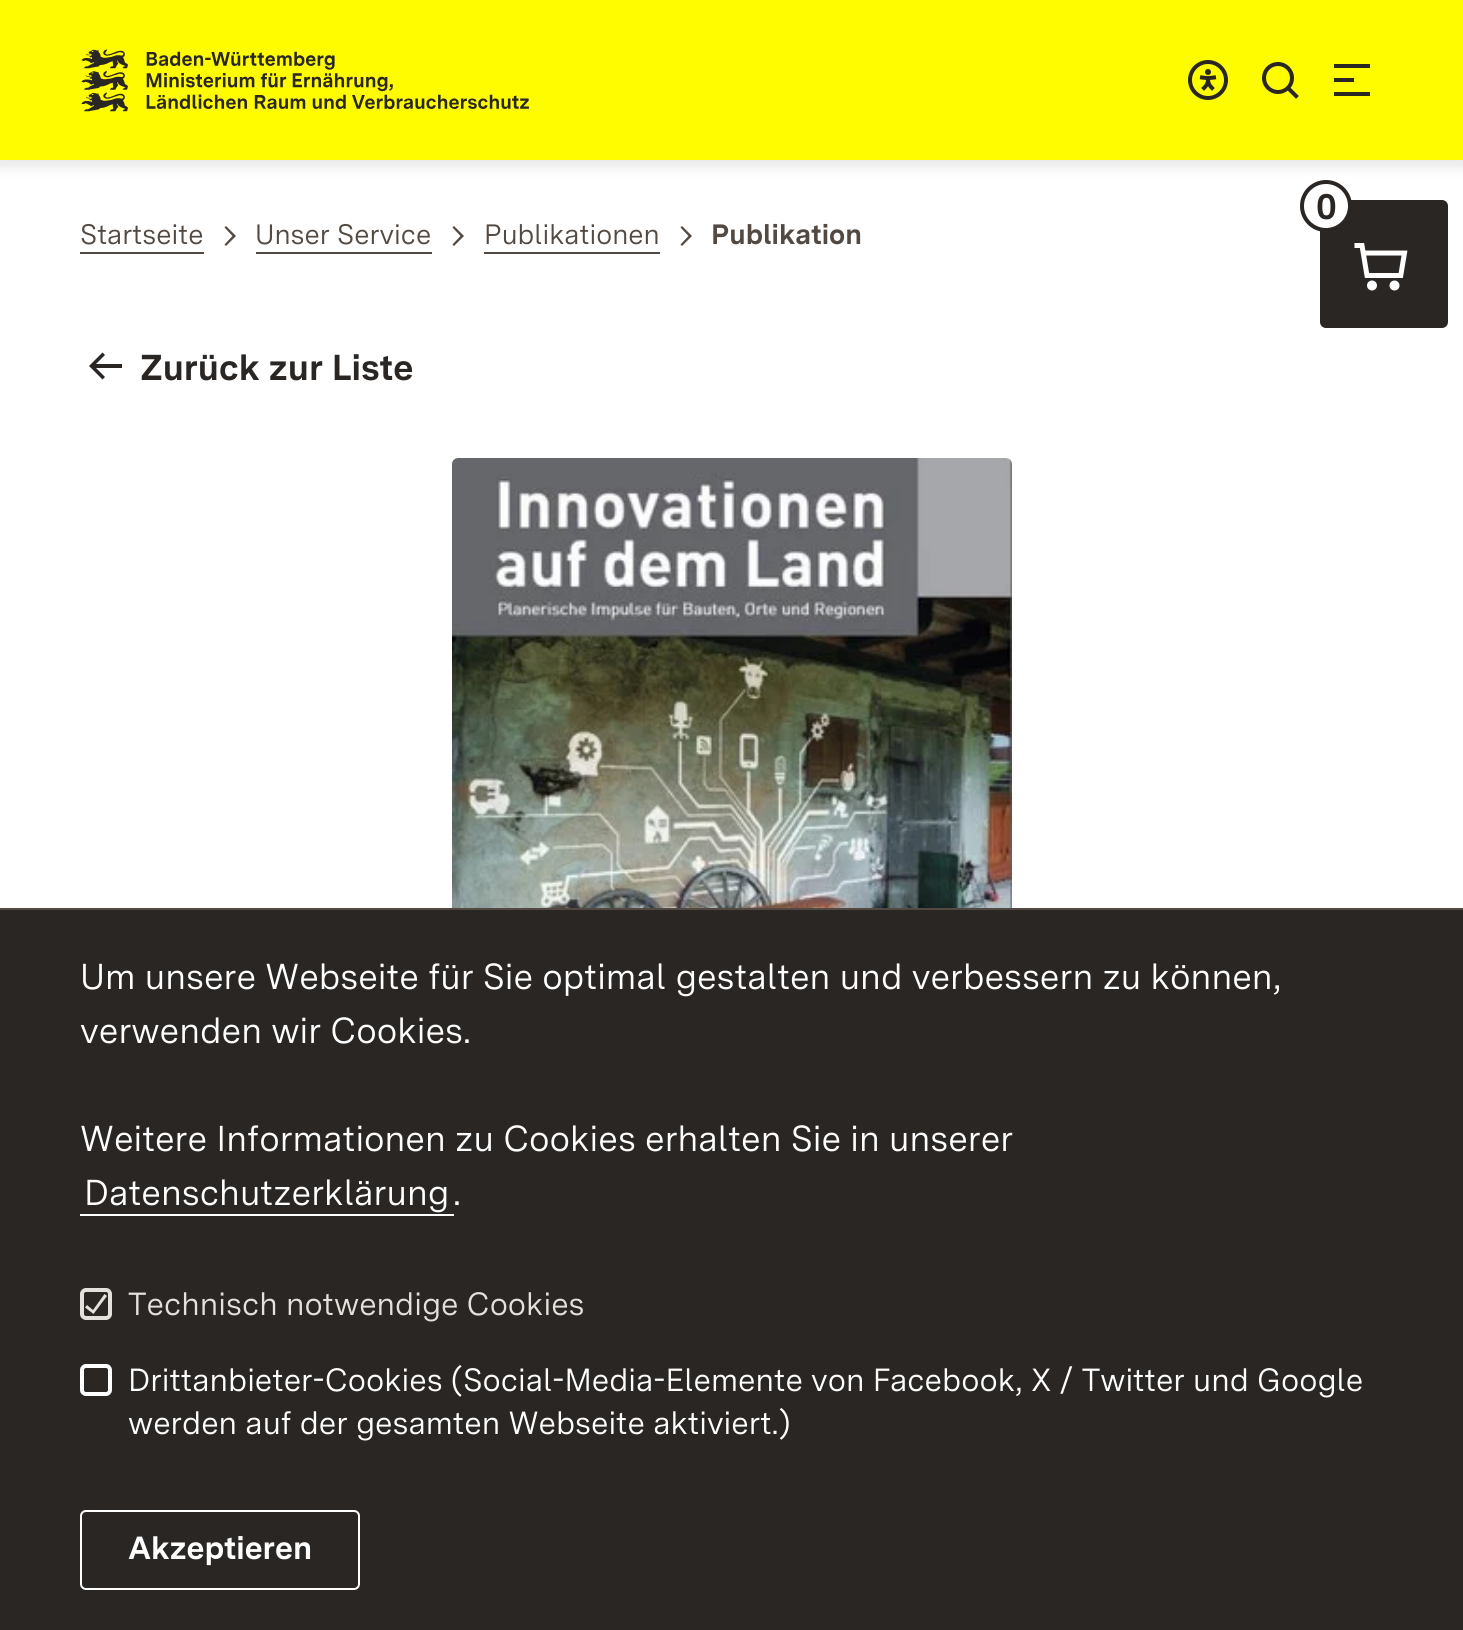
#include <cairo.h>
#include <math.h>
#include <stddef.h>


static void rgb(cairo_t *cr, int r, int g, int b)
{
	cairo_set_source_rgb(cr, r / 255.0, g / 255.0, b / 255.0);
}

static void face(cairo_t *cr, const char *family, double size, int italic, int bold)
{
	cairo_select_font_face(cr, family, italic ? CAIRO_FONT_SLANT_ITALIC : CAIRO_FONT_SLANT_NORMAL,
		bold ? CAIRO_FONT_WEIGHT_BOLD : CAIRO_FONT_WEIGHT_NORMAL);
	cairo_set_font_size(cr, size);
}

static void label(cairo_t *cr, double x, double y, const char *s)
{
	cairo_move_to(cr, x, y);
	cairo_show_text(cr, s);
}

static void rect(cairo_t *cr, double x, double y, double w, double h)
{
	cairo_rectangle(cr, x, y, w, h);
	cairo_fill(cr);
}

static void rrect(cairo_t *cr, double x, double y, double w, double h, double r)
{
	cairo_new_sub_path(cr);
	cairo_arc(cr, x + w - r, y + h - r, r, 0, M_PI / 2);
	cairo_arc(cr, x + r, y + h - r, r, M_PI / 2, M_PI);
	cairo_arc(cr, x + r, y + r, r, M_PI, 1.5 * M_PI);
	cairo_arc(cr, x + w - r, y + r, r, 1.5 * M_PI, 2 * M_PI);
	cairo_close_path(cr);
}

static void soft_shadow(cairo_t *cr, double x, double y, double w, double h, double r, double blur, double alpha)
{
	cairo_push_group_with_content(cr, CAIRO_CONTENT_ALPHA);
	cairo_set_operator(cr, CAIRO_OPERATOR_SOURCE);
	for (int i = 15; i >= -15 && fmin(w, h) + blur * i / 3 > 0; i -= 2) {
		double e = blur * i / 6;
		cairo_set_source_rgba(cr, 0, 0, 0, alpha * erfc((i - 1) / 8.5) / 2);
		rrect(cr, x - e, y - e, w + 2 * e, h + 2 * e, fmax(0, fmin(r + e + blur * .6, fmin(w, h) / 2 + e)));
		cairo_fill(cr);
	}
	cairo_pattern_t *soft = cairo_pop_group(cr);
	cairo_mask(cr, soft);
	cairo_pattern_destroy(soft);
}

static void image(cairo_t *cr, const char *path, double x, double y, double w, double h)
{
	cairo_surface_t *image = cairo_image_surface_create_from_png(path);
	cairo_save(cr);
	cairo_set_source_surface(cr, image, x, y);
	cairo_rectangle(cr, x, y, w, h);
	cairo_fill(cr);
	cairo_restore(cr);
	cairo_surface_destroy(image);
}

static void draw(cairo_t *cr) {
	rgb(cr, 255, 255, 255);
	cairo_paint(cr);
	rgb(cr, 42, 38, 35);
	rrect(cr, 1320, 200, 128, 128, 6);
	cairo_fill(cr);
	rgb(cr, 255, 255, 255);
	cairo_arc(cr, 1326, 206, 24, 0, 2 * M_PI);
	cairo_fill_preserve(cr);
	rgb(cr, 42, 38, 35);
	cairo_set_line_width(cr, 4);
	cairo_stroke(cr);
	rgb(cr, 42, 38, 35);
	soft_shadow(cr, -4, 0, 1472, 168, 0, 6, 0.1);
	rgb(cr, 255, 252, 0);
	rect(cr, 0, 0, 1463, 160);
	image(cr, "image0.png", 81, 49, 448, 63);
	image(cr, "image1.png", 1188, 60, 40, 40);
	image(cr, "image2.png", 1262, 62, 37, 37);
	rgb(cr, 42, 38, 35);
	cairo_set_fill_rule(cr, CAIRO_FILL_RULE_EVEN_ODD);
	cairo_new_path(cr);
	cairo_move_to(cr, 1334, 64);
	cairo_line_to(cr, 1370, 64);
	cairo_line_to(cr, 1370, 68);
	cairo_line_to(cr, 1334, 68);
	cairo_close_path(cr);
	cairo_move_to(cr, 1334, 78);
	cairo_line_to(cr, 1354, 78);
	cairo_line_to(cr, 1354, 82);
	cairo_line_to(cr, 1334, 82);
	cairo_close_path(cr);
	cairo_move_to(cr, 1334, 92);
	cairo_line_to(cr, 1370, 92);
	cairo_line_to(cr, 1370, 96);
	cairo_line_to(cr, 1334, 96);
	cairo_close_path(cr);
	cairo_fill(cr);
	face(cr, "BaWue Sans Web", 36, 0, 1);
	label(cr, 1316, 219, "0");
	image(cr, "image3.png", 1354, 243, 54, 48);
	cairo_new_path(cr);
	cairo_move_to(cr, 105, 355);
	cairo_line_to(cr, 96, 364);
	cairo_line_to(cr, 122, 364);
	cairo_line_to(cr, 122, 368);
	cairo_line_to(cr, 96, 368);
	cairo_line_to(cr, 105, 377);
	cairo_line_to(cr, 102.5, 379.5);
	cairo_line_to(cr, 89, 366);
	cairo_line_to(cr, 102.5, 352.5);
	cairo_close_path(cr);
	cairo_fill(cr);
	label(cr, 140, 380, "Zurück zur Liste");
	image(cr, "image4.png", 452, 458, 560, 450);
	rgb(cr, 82, 73, 66);
	rect(cr, 80, 252, 124, 2);
	face(cr, "BaWue Sans Web", 28, 0, 0);
	label(cr, 80, 244, "Startseite");
	cairo_set_fill_rule(cr, CAIRO_FILL_RULE_WINDING);
	cairo_new_path(cr);
	cairo_move_to(cr, 232.5, 236);
	cairo_line_to(cr, 224.5, 227.5);
	cairo_line_to(cr, 226, 226);
	cairo_line_to(cr, 236, 236);
	cairo_line_to(cr, 226, 246);
	cairo_line_to(cr, 224.5, 244.5);
	cairo_close_path(cr);
	cairo_fill(cr);
	rect(cr, 256, 252, 176, 2);
	label(cr, 255, 244, "Unser Service");
	cairo_new_path(cr);
	cairo_move_to(cr, 460.5, 236);
	cairo_line_to(cr, 452.5, 227.5);
	cairo_line_to(cr, 454, 226);
	cairo_line_to(cr, 464, 236);
	cairo_line_to(cr, 454, 246);
	cairo_line_to(cr, 452.5, 244.5);
	cairo_close_path(cr);
	cairo_fill(cr);
	rect(cr, 484, 252, 176, 2);
	label(cr, 484, 244, "Publikationen");
	cairo_new_path(cr);
	cairo_move_to(cr, 688.5, 236);
	cairo_line_to(cr, 680.5, 227.5);
	cairo_line_to(cr, 682, 226);
	cairo_line_to(cr, 692, 236);
	cairo_line_to(cr, 682, 246);
	cairo_line_to(cr, 680.5, 244.5);
	cairo_close_path(cr);
	cairo_fill(cr);
	face(cr, "BaWue Sans Web", 28, 0, 1);
	label(cr, 711, 244, "Publikation");
	rgb(cr, 42, 38, 35);
	rect(cr, 0, 910, 1463, 720);
	rgb(cr, 82, 73, 66);
	rect(cr, 0, 908, 1463, 2);
	face(cr, "BaWue Sans Web", 36, 0, 0);
	rgb(cr, 255, 255, 255);
	label(cr, 80, 989, "Um unsere Webseite für Sie optimal gestalten und verbessern zu können,");
	label(cr, 80, 1043, "verwenden wir Cookies.");
	label(cr, 80, 1151, "Weitere Informationen zu Cookies erhalten Sie in unserer");
	label(cr, 84, 1205, "Datenschutzerklärung");
	rect(cr, 80, 1214, 374, 2);
	label(cr, 453, 1205, ".");
	rrect(cr, 82, 1290, 28, 28, 4);
	rgb(cr, 228, 225, 220);
	cairo_stroke(cr);
	cairo_set_fill_rule(cr, CAIRO_FILL_RULE_EVEN_ODD);
	cairo_new_path(cr);
	cairo_move_to(cr, 107, 1296);
	cairo_line_to(cr, 93.5, 1314);
	cairo_line_to(cr, 85, 1307.5);
	cairo_line_to(cr, 87, 1305);
	cairo_line_to(cr, 93, 1310);
	cairo_line_to(cr, 104.5, 1294);
	cairo_close_path(cr);
	cairo_fill(cr);
	face(cr, "BaWue Sans Web", 32, 0, 0);
	label(cr, 128, 1315, "Technisch notwendige Cookies");
	rrect(cr, 82, 1366, 28, 28, 4);
	rgb(cr, 255, 255, 255);
	cairo_stroke(cr);
	label(cr, 128, 1391, "Drittanbieter-Cookies (Social-Media-Elemente von Facebook, X / Twitter und Google");
	label(cr, 128, 1434, "werden auf der gesamten Webseite aktiviert.)");
	rrect(cr, 81, 1511, 278, 78, 5);
	cairo_set_line_width(cr, 2);
	cairo_stroke(cr);
	face(cr, "BaWue Sans Web", 32, 0, 1);
	label(cr, 128, 1559, "Akzeptieren");
}

int main(void) {
	cairo_surface_t *surface = cairo_image_surface_create(CAIRO_FORMAT_RGB24, 1463, 1630);
	cairo_t *cr = cairo_create(surface);
	cairo_font_options_t *options = cairo_font_options_create();
	cairo_font_options_set_hint_metrics(options, CAIRO_HINT_METRICS_OFF);
	cairo_font_options_set_hint_style(options, CAIRO_HINT_STYLE_NONE);
	cairo_set_font_options(cr, options);
	cairo_set_miter_limit(cr, 4);
	draw(cr);
	cairo_surface_write_to_png(surface, "render.png");
	cairo_font_options_destroy(options);
	cairo_destroy(cr);
	cairo_surface_destroy(surface);
	return 0;
}
